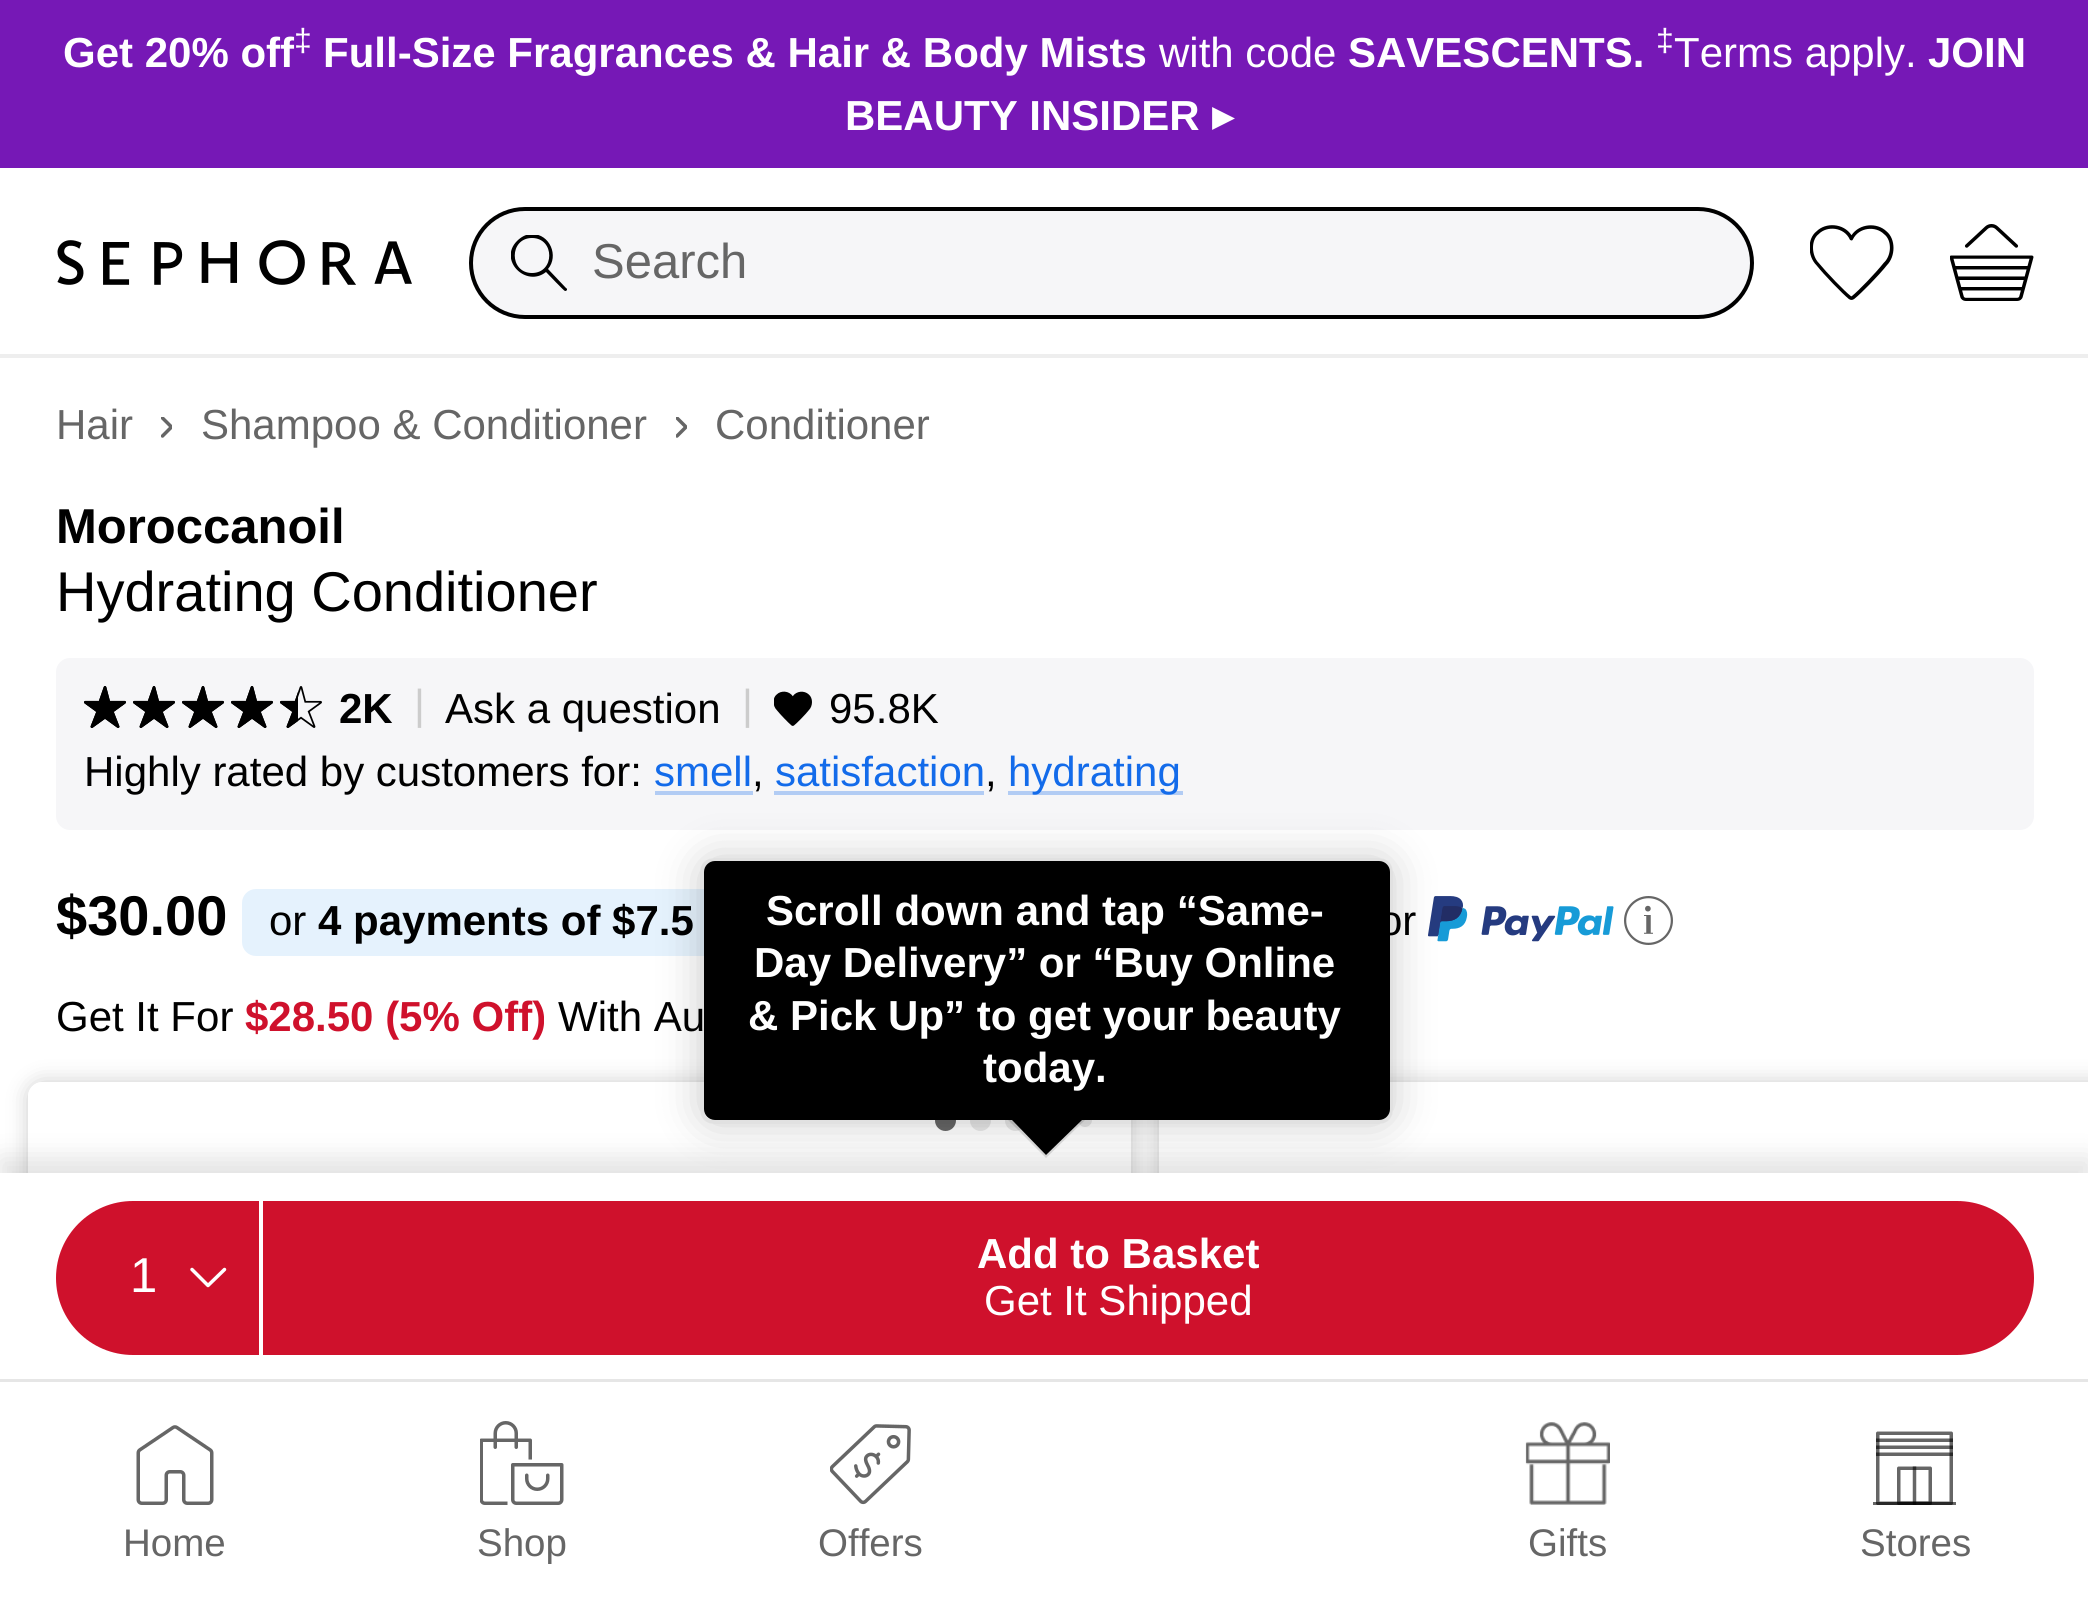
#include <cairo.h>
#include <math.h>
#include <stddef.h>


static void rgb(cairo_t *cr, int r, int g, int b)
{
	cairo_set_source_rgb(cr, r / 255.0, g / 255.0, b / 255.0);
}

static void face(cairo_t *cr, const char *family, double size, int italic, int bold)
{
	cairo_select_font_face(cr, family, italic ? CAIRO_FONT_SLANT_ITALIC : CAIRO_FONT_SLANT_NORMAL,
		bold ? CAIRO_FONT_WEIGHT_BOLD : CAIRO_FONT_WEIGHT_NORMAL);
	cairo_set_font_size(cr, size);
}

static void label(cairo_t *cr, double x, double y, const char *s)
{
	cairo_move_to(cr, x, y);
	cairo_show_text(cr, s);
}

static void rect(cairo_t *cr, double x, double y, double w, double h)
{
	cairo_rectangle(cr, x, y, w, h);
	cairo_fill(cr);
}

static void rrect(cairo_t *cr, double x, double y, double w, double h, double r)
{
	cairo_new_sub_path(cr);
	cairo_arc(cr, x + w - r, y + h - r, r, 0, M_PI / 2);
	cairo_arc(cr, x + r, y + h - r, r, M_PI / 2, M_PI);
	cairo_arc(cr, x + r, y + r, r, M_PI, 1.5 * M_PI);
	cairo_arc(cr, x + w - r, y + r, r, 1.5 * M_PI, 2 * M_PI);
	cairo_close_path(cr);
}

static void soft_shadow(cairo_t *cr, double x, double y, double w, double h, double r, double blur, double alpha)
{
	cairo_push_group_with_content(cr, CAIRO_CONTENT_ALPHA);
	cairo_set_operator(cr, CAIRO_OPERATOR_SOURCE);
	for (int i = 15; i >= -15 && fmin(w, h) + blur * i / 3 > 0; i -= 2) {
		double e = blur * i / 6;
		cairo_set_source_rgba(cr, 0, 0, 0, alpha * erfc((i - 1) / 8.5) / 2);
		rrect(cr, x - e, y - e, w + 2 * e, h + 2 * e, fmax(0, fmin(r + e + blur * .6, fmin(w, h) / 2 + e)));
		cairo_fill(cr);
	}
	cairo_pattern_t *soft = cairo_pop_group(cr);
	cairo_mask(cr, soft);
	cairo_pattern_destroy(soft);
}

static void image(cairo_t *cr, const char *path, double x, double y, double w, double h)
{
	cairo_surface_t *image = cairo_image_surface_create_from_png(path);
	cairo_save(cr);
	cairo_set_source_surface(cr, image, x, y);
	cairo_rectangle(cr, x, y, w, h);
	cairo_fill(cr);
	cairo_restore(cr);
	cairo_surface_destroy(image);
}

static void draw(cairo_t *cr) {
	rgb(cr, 255, 255, 255);
	cairo_paint(cr);
	rgb(cr, 118, 24, 182);
	rect(cr, 0, 0, 2088, 168);
	face(cr, "Liberation Sans", 42, 0, 1);
	rgb(cr, 255, 255, 255);
	label(cr, 63, 67, "Get 20% off");
	face(cr, "Liberation Sans", 32, 0, 0);
	label(cr, 294, 51, "‡");
	face(cr, "Liberation Sans", 42, 0, 1);
	label(cr, 323, 67, "Full-Size Fragrances & Hair & Body Mists");
	face(cr, "Liberation Sans", 42, 0, 0);
	label(cr, 1159, 67, "with code");
	face(cr, "Liberation Sans", 42, 0, 1);
	label(cr, 1348, 67, "SAVESCENTS.");
	face(cr, "Liberation Sans", 32, 0, 0);
	label(cr, 1656, 51, "‡");
	face(cr, "Liberation Sans", 42, 0, 0);
	label(cr, 1674, 67, "Terms apply.");
	face(cr, "Liberation Sans", 42, 0, 1);
	label(cr, 1928, 67, "JOIN");
	label(cr, 845, 130, "BEAUTY INSIDER");
	face(cr, "DejaVu Sans", 42, 0, 1);
	label(cr, 1212, 130, "▸");
	rgb(cr, 238, 238, 238);
	rect(cr, 0, 354, 2088, 4);
	image(cr, "image0.png", 57, 240, 355, 45);
	rgb(cr, 246, 246, 248);
	rrect(cr, 471, 209, 1281, 108, 54);
	cairo_fill_preserve(cr);
	rgb(cr, 0, 0, 0);
	cairo_set_line_width(cr, 4);
	cairo_stroke(cr);
	cairo_save(cr);
	cairo_rectangle(cr, 511, 235, 56, 56);
	cairo_clip(cr);
	cairo_new_path(cr);
	cairo_move_to(cr, 532, 234);
	cairo_curve_to(cr, 550, 234, 559, 256, 548, 269);
	cairo_line_to(cr, 566, 288);
	cairo_curve_to(cr, 568, 289, 567, 291, 565, 291);
	cairo_curve_to(cr, 564, 291, 548, 274, 546, 272);
	cairo_curve_to(cr, 526, 288, 498, 260, 517, 241);
	cairo_curve_to(cr, 521, 237, 526, 234, 532, 234);
	cairo_close_path(cr);
	cairo_move_to(cr, 532, 238);
	cairo_curve_to(cr, 509, 238, 509, 273, 532, 273);
	cairo_curve_to(cr, 555, 273, 555, 238, 532, 238);
	cairo_close_path(cr);
	cairo_fill(cr);
	cairo_restore(cr);
	face(cr, "Liberation Sans", 49, 0, 0);
	rgb(cr, 102, 102, 102);
	label(cr, 592, 278, "Search");
	image(cr, "image1.png", 1810, 225, 84, 75);
	image(cr, "image2.png", 1950, 224, 84, 77);
	rgb(cr, 229, 242, 253);
	rrect(cr, 242, 889, 591, 67, 14);
	cairo_fill(cr);
	rgb(cr, 246, 246, 248);
	rrect(cr, 56, 658, 1978, 172, 14);
	cairo_fill(cr);
	rgb(cr, 178, 204, 244);
	rect(cr, 655, 791, 98, 4);
	rect(cr, 774, 791, 210, 4);
	rect(cr, 1008, 791, 175, 4);
	image(cr, "image12.png", 1428, 896, 186, 46);
	cairo_save(cr);
	cairo_set_fill_rule(cr, CAIRO_FILL_RULE_EVEN_ODD);
	cairo_new_path(cr);
	cairo_move_to(cr, 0, 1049);
	cairo_line_to(cr, 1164, 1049);
	cairo_line_to(cr, 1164, 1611);
	cairo_line_to(cr, 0, 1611);
	cairo_close_path(cr);
	cairo_move_to(cr, 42, 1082);
	cairo_line_to(cr, 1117, 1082);
	cairo_curve_to(cr, 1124.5, 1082, 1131, 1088.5, 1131, 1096);
	cairo_line_to(cr, 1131, 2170);
	cairo_curve_to(cr, 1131, 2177.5, 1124.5, 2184, 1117, 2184);
	cairo_line_to(cr, 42, 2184);
	cairo_curve_to(cr, 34.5, 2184, 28, 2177.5, 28, 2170);
	cairo_line_to(cr, 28, 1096);
	cairo_curve_to(cr, 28, 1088.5, 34.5, 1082, 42, 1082);
	cairo_close_path(cr);
	cairo_clip(cr);
	rgb(cr, 0, 0, 0);
	soft_shadow(cr, 28, 1082, 1103, 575, 14, 10.5, 0.2);
	cairo_restore(cr);
	rgb(cr, 102, 102, 102);
	cairo_arc(cr, 945.5, 1120.5, 10.5, 0, 2 * M_PI);
	cairo_fill(cr);
	rgb(cr, 231, 231, 231);
	cairo_arc(cr, 980.5, 1120.5, 10.5, 0, 2 * M_PI);
	cairo_fill(cr);
	cairo_arc(cr, 1015.5, 1120.5, 10.5, 0, 2 * M_PI);
	cairo_fill(cr);
	cairo_arc(cr, 1085, 1120, 7, 0, 2 * M_PI);
	cairo_fill(cr);
	cairo_save(cr);
	cairo_set_fill_rule(cr, CAIRO_FILL_RULE_EVEN_ODD);
	cairo_new_path(cr);
	cairo_move_to(cr, 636, 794);
	cairo_line_to(cr, 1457, 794);
	cairo_line_to(cr, 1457, 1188);
	cairo_line_to(cr, 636, 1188);
	cairo_close_path(cr);
	cairo_move_to(cr, 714, 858);
	cairo_line_to(cr, 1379, 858);
	cairo_curve_to(cr, 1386.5, 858, 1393, 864.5, 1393, 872);
	cairo_line_to(cr, 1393, 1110);
	cairo_curve_to(cr, 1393, 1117.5, 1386.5, 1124, 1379, 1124);
	cairo_line_to(cr, 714, 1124);
	cairo_curve_to(cr, 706.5, 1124, 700, 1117.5, 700, 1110);
	cairo_line_to(cr, 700, 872);
	cairo_curve_to(cr, 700, 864.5, 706.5, 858, 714, 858);
	cairo_close_path(cr);
	cairo_clip(cr);
	rgb(cr, 0, 0, 0);
	soft_shadow(cr, 700, 858, 693, 266, 14, 21, 0.2);
	cairo_restore(cr);
	cairo_save(cr);
	cairo_set_fill_rule(cr, CAIRO_FILL_RULE_EVEN_ODD);
	cairo_new_path(cr);
	cairo_move_to(cr, 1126, 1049);
	cairo_line_to(cr, 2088, 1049);
	cairo_line_to(cr, 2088, 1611);
	cairo_line_to(cr, 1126, 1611);
	cairo_close_path(cr);
	cairo_move_to(cr, 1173, 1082);
	cairo_line_to(cr, 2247, 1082);
	cairo_curve_to(cr, 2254.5, 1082, 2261, 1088.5, 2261, 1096);
	cairo_line_to(cr, 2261, 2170);
	cairo_curve_to(cr, 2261, 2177.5, 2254.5, 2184, 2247, 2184);
	cairo_line_to(cr, 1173, 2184);
	cairo_curve_to(cr, 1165.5, 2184, 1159, 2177.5, 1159, 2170);
	cairo_line_to(cr, 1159, 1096);
	cairo_curve_to(cr, 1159, 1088.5, 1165.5, 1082, 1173, 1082);
	cairo_close_path(cr);
	cairo_clip(cr);
	rgb(cr, 0, 0, 0);
	soft_shadow(cr, 1159, 1082, 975, 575, 14, 10.5, 0.2);
	cairo_restore(cr);
	rgb(cr, 0, 0, 0);
	rrect(cr, 704, 861, 686, 259, 11);
	cairo_fill(cr);
	face(cr, "Liberation Sans", 42, 0, 0);
	label(cr, 1379, 935, "or");
	label(cr, 558, 1031, "With Au");
	rrect(cr, 702, 860, 689, 262, 12);
	cairo_set_source_rgba(cr, 0, 0, 0, 0.12);
	cairo_stroke(cr);
	cairo_new_path(cr);
	cairo_move_to(cr, 1008, 1120);
	cairo_line_to(cr, 1085, 1120);
	cairo_line_to(cr, 1046, 1158);
	cairo_close_path(cr);
	cairo_fill(cr);
	rgb(cr, 0, 0, 0);
	cairo_new_path(cr);
	cairo_move_to(cr, 1012, 1120);
	cairo_line_to(cr, 1082, 1120);
	cairo_line_to(cr, 1046, 1155);
	cairo_close_path(cr);
	cairo_fill(cr);
	rgb(cr, 0, 0, 0);
	soft_shadow(cr, 0, 1159, 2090, 210, 0, 14, 0.12);
	rgb(cr, 255, 255, 255);
	rect(cr, 0, 1173, 2088, 438);
	rgb(cr, 230, 230, 230);
	cairo_new_path(cr);
	cairo_move_to(cr, 0, 1379);
	cairo_line_to(cr, 0, 1382);
	cairo_line_to(cr, 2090, 1382);
	cairo_line_to(cr, 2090, 1610);
	cairo_line_to(cr, 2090, 1379);
	cairo_close_path(cr);
	cairo_fill(cr);
	image(cr, "image3.png", 136, 1425, 78, 80);
	face(cr, "Liberation Sans", 38.5, 0, 0);
	rgb(cr, 102, 102, 102);
	label(cr, 123, 1556, "Home");
	image(cr, "image4.png", 480, 1421, 84, 84);
	label(cr, 477, 1556, "Shop");
	image(cr, "image5.png", 830, 1424, 81, 81);
	label(cr, 818, 1556, "Offers");
	image(cr, "image6.png", 1525, 1422, 85, 83);
	label(cr, 1528, 1556, "Gifts");
	image(cr, "image7.png", 1873, 1431, 83, 74);
	label(cr, 1860, 1556, "Stores");
	face(cr, "Liberation Sans", 42, 0, 0);
	label(cr, 56, 439, "Hair");
	cairo_save(cr);
	cairo_rectangle(cr, 161, 417, 11, 21);
	cairo_clip(cr);
	cairo_new_path(cr);
	cairo_move_to(cr, 162.5, 436);
	cairo_line_to(cr, 171.5, 427);
	cairo_line_to(cr, 162.5, 418);
	cairo_set_line_width(cr, 3.5);
	cairo_set_line_cap(cr, CAIRO_LINE_CAP_ROUND);
	cairo_set_line_join(cr, CAIRO_LINE_JOIN_ROUND);
	cairo_stroke(cr);
	cairo_restore(cr);
	label(cr, 201, 439, "Shampoo & Conditioner");
	cairo_save(cr);
	cairo_rectangle(cr, 676, 417, 11, 21);
	cairo_clip(cr);
	cairo_new_path(cr);
	cairo_move_to(cr, 677, 436);
	cairo_line_to(cr, 686, 427);
	cairo_line_to(cr, 677, 418);
	cairo_set_line_width(cr, 3.5);
	cairo_set_line_cap(cr, CAIRO_LINE_CAP_ROUND);
	cairo_set_line_join(cr, CAIRO_LINE_JOIN_ROUND);
	cairo_stroke(cr);
	cairo_restore(cr);
	label(cr, 715, 439, "Conditioner");
	face(cr, "Liberation Sans", 49, 0, 1);
	rgb(cr, 0, 0, 0);
	label(cr, 56, 543, "Moroccanoil");
	face(cr, "Liberation Sans", 56, 0, 0);
	label(cr, 56, 611, "Hydrating Conditioner");
	image(cr, "image8.png", 84, 686, 42, 42);
	image(cr, "image8.png", 133, 686, 42, 42);
	image(cr, "image8.png", 182, 686, 42, 42);
	image(cr, "image8.png", 231, 686, 42, 42);
	image(cr, "image8.png", 280, 686, 42, 42);
	image(cr, "image9.png", 84, 686, 42, 42);
	image(cr, "image9.png", 133, 686, 42, 42);
	image(cr, "image9.png", 182, 686, 42, 42);
	image(cr, "image9.png", 231, 686, 42, 42);
	image(cr, "image10.png", 280, 692, 18, 36);
	face(cr, "Liberation Sans", 42, 0, 1);
	label(cr, 339, 723, "2K");
	face(cr, "Liberation Sans", 42, 0, 0);
	rgb(cr, 204, 204, 204);
	label(cr, 414, 719, "|");
	rgb(cr, 0, 0, 0);
	label(cr, 445, 723, "Ask a question");
	rgb(cr, 204, 204, 204);
	label(cr, 742, 719, "|");
	image(cr, "image11.png", 774, 691, 38, 35);
	rgb(cr, 0, 0, 0);
	label(cr, 829, 723, "95.8K");
	label(cr, 84, 786, "Highly rated by customers for:");
	rgb(cr, 19, 107, 234);
	label(cr, 654, 786, "smell");
	rgb(cr, 0, 0, 0);
	label(cr, 752, 786, ",");
	rgb(cr, 19, 107, 234);
	label(cr, 775, 786, "satisfaction");
	rgb(cr, 0, 0, 0);
	label(cr, 985, 786, ",");
	rgb(cr, 19, 107, 234);
	label(cr, 1008, 786, "hydrating");
	face(cr, "Liberation Sans", 56, 0, 1);
	rgb(cr, 0, 0, 0);
	label(cr, 56, 935, "$30.00");
	face(cr, "Liberation Sans", 42, 0, 0);
	label(cr, 269, 935, "or");
	face(cr, "Liberation Sans", 42, 0, 1);
	label(cr, 318, 935, "4 payments of $7.5");
	image(cr, "image13.png", 1624, 896, 49, 49);
	face(cr, "Liberation Sans", 42, 0, 0);
	label(cr, 56, 1031, "Get It For");
	face(cr, "Liberation Sans", 42, 0, 1);
	rgb(cr, 207, 17, 44);
	label(cr, 245, 1031, "$28.50 (5% Off)");
	rgb(cr, 255, 255, 255);
	label(cr, 766, 925, "Scroll down and tap “Same-");
	label(cr, 754, 977, "Day Delivery” or “Buy Online");
	label(cr, 748, 1030, "& Pick Up” to get your beauty");
	label(cr, 983, 1082, "today.");
	rgb(cr, 207, 17, 44);
	rrect(cr, 56, 1201, 1978, 154, 77);
	cairo_fill(cr);
	rgb(cr, 255, 255, 255);
	rect(cr, 259, 1201, 4, 154);
	face(cr, "Liberation Sans", 49, 0, 0);
	label(cr, 130, 1292, "1");
	cairo_new_path(cr);
	cairo_move_to(cr, 192, 1269.5);
	cairo_line_to(cr, 208, 1285.5);
	cairo_line_to(cr, 224.5, 1269.5);
	cairo_set_line_width(cr, 3.5);
	cairo_set_line_cap(cr, CAIRO_LINE_CAP_ROUND);
	cairo_set_line_join(cr, CAIRO_LINE_JOIN_ROUND);
	cairo_stroke(cr);
	face(cr, "Liberation Sans", 42, 0, 1);
	label(cr, 977, 1268, "Add to Basket");
	face(cr, "Liberation Sans", 42, 0, 0);
	label(cr, 984, 1315, "Get It Shipped");
}

int main(void) {
	cairo_surface_t *surface = cairo_image_surface_create(CAIRO_FORMAT_RGB24, 2088, 1611);
	cairo_t *cr = cairo_create(surface);
	cairo_font_options_t *options = cairo_font_options_create();
	cairo_font_options_set_hint_metrics(options, CAIRO_HINT_METRICS_OFF);
	cairo_font_options_set_hint_style(options, CAIRO_HINT_STYLE_NONE);
	cairo_set_font_options(cr, options);
	cairo_set_miter_limit(cr, 4);
	draw(cr);
	cairo_surface_write_to_png(surface, "render.png");
	cairo_font_options_destroy(options);
	cairo_destroy(cr);
	cairo_surface_destroy(surface);
	return 0;
}
